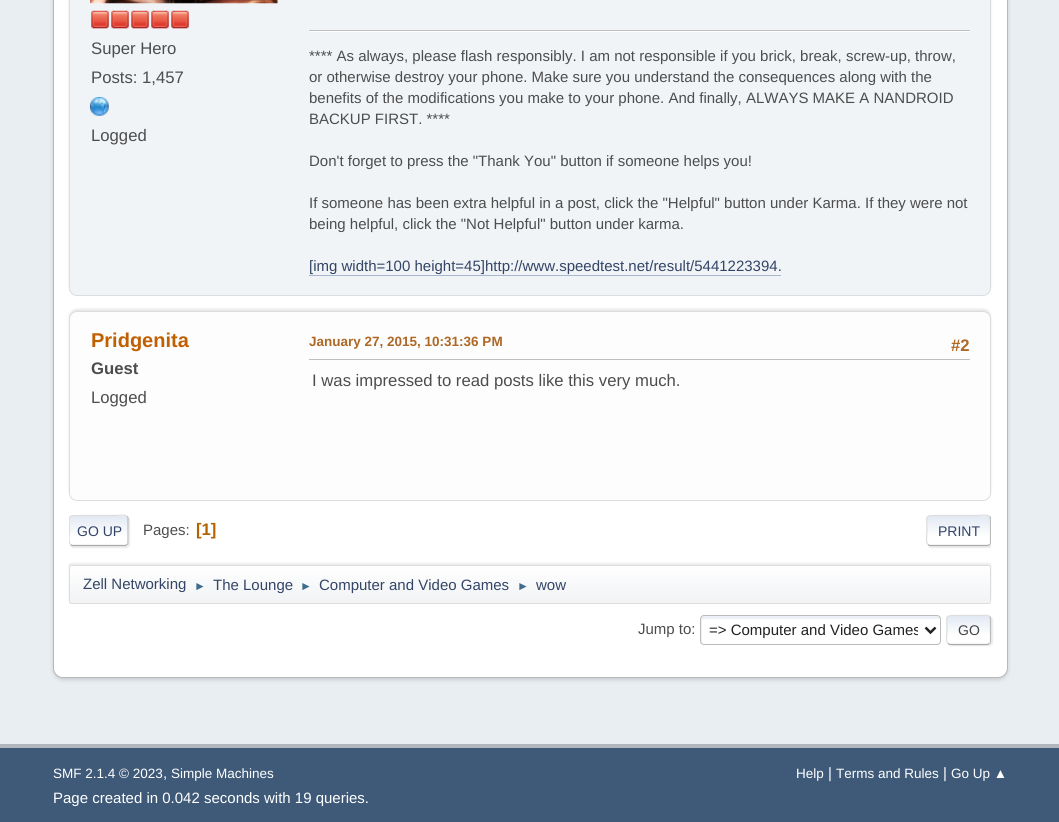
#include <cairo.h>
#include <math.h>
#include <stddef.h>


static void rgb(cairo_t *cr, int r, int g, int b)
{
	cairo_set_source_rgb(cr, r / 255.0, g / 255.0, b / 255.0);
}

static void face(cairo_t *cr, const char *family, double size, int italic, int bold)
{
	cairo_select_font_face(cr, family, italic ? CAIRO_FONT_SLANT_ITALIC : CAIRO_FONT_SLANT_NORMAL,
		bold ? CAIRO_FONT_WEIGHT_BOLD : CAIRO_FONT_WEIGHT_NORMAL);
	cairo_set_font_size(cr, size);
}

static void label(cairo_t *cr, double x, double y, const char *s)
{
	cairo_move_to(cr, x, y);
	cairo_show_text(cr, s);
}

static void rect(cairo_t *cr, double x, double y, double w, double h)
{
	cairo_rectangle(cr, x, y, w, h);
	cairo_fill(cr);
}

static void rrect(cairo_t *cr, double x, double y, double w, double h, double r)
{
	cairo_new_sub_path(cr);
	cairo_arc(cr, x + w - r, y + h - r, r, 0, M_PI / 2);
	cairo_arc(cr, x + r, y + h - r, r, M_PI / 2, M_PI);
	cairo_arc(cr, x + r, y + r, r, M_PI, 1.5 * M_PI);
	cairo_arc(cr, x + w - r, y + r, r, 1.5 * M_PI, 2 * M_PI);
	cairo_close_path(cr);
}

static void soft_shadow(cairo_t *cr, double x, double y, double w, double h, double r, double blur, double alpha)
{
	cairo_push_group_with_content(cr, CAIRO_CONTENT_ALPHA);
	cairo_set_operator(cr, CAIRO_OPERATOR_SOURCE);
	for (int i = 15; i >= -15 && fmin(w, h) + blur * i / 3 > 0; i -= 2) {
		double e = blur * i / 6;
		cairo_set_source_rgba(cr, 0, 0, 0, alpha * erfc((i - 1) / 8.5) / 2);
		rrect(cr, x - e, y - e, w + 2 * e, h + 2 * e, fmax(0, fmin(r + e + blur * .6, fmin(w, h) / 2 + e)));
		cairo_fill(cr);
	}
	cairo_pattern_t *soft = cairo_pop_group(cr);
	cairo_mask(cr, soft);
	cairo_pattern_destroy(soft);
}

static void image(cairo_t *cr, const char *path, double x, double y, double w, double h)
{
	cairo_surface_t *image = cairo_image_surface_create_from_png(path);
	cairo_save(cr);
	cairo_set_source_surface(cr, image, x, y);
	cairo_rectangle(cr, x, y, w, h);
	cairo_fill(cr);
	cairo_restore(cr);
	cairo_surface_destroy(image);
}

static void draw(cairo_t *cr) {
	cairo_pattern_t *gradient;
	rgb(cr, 233, 238, 242);
	cairo_paint(cr);
	rgb(cr, 0, 0, 0);
	soft_shadow(cr, 53, -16, 955, 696, 10, 2, 0.14);
	rgb(cr, 255, 255, 255);
	rrect(cr, 53.5, -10.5, 954, 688, 9.5);
	cairo_fill_preserve(cr);
	rgb(cr, 184, 184, 184);
	cairo_set_line_width(cr, 1);
	cairo_stroke(cr);
	rgb(cr, 0, 0, 0);
	soft_shadow(cr, 69, -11, 922, 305, 8, 1, 0.1);
	rgb(cr, 240, 244, 247);
	rrect(cr, 69.5, -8.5, 921, 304, 7.5);
	cairo_fill_preserve(cr);
	rgb(cr, 221, 221, 221);
	cairo_stroke(cr);
	image(cr, "image0.png", 90, 0, 188, 4);
	image(cr, "image1.png", 91, 10, 18, 19);
	image(cr, "image1.png", 111, 10, 18, 19);
	image(cr, "image1.png", 131, 10, 18, 19);
	image(cr, "image1.png", 151, 10, 18, 19);
	image(cr, "image1.png", 171, 10, 18, 19);
	face(cr, "Liberation Sans", 16.7, 0, 0);
	rgb(cr, 77, 77, 77);
	label(cr, 91, 54, "Super Hero");
	label(cr, 91, 83, "Posts: 1,457");
	image(cr, "image2.png", 90, 97, 19, 19);
	label(cr, 91, 141, "Logged");
	rgb(cr, 255, 255, 255);
	rect(cr, 309, 31, 661, 1);
	rgb(cr, 191, 191, 191);
	rect(cr, 309, 30, 661, 1);
	face(cr, "Liberation Sans", 15, 0, 0);
	rgb(cr, 77, 77, 77);
	label(cr, 309, 61, "**** As always, please flash responsibly. I am not responsible if you brick, break, screw-up, throw,");
	label(cr, 309, 82, "or otherwise destroy your phone. Make sure you understand the consequences along with the");
	label(cr, 309, 103, "benefits of the modifications you make to your phone. And finally, ALWAYS MAKE A NANDROID");
	label(cr, 309, 124, "BACKUP FIRST. ****");
	label(cr, 309, 166, "Don't forget to press the \"Thank You\" button if someone helps you!");
	label(cr, 309, 208, "If someone has been extra helpful in a post, click the \"Helpful\" button under Karma. If they were not");
	label(cr, 309, 229, "being helpful, click the \"Not Helpful\" button under karma.");
	rgb(cr, 51, 68, 102);
	label(cr, 309, 271, "[img width=100 height=45]http://www.speedtest.net/result/5441223394.");
	rgb(cr, 168, 182, 207);
	rect(cr, 309, 275, 472, 1);
	rgb(cr, 0, 0, 0);
	soft_shadow(cr, 69, 309, 922, 190, 8, 1, 0.1);
	rgb(cr, 253, 253, 253);
	rrect(cr, 69.5, 311.5, 921, 189, 7.5);
	cairo_fill_preserve(cr);
	rgb(cr, 221, 221, 221);
	cairo_stroke(cr);
	face(cr, "Liberation Sans", 20, 0, 1);
	rgb(cr, 192, 96, 2);
	label(cr, 91, 347, "Pridgenita");
	face(cr, "Liberation Sans", 16.7, 0, 1);
	rgb(cr, 77, 77, 77);
	label(cr, 91, 374, "Guest");
	face(cr, "Liberation Sans", 16.7, 0, 0);
	label(cr, 91, 403, "Logged");
	face(cr, "Liberation Sans", 13.5, 0, 1);
	rgb(cr, 173, 104, 37);
	label(cr, 309, 346, "January 27, 2015, 10:31:36 PM");
	face(cr, "Liberation Sans", 16.7, 0, 1);
	label(cr, 951, 351, "#2");
	rgb(cr, 191, 191, 191);
	rect(cr, 309, 359, 661, 1);
	face(cr, "Liberation Sans", 16.7, 0, 0);
	rgb(cr, 77, 77, 77);
	label(cr, 312, 386, "I was impressed to read posts like this very much.");
	rgb(cr, 221, 221, 221);
	soft_shadow(cr, 70, 516, 60, 32, 4, 0.5, 0.57);
	rgb(cr, 255, 255, 255);
	rrect(cr, 69, 515, 60, 31, 4);
	cairo_fill(cr);
	cairo_save(cr);
	rrect(cr, 69, 515, 60, 31, 4);
	cairo_clip(cr);
	gradient = cairo_pattern_create_linear(99, 516, 99, 545);
	cairo_pattern_add_color_stop_rgba(gradient, 0, 0.886, 0.914, 0.953, 1);
	cairo_pattern_add_color_stop_rgba(gradient, 0.7, 1, 1, 1, 1);
	cairo_set_source(cr, gradient);
	cairo_pattern_destroy(gradient);
	rect(cr, 69, 516, 60, 29);
	cairo_restore(cr);
	cairo_new_path(cr);
	cairo_move_to(cr, 127, 516.5);
	cairo_curve_to(cr, 128, 517, 128, 518, 128, 519);
	cairo_line_to(cr, 128, 542.5);
	cairo_curve_to(cr, 128, 543.5, 128, 544, 127, 544.5);
	rgb(cr, 187, 187, 187);
	cairo_set_line_width(cr, 1.2);
	cairo_stroke(cr);
	cairo_new_path(cr);
	cairo_move_to(cr, 127, 544.5);
	cairo_line_to(cr, 125.5, 545.5);
	cairo_line_to(cr, 72, 545.5);
	cairo_line_to(cr, 70.5, 544.5);
	rgb(cr, 170, 170, 170);
	cairo_stroke(cr);
	cairo_save(cr);
	cairo_rectangle(cr, 69, 506, 922, 49);
	cairo_clip(cr);
	cairo_new_path(cr);
	cairo_move_to(cr, 70.5, 544.5);
	cairo_curve_to(cr, 68, 542.5, 69.5, 533.5, 69.5, 530.5);
	cairo_curve_to(cr, 69.5, 515, 66, 515.5, 81, 515.5);
	cairo_line_to(cr, 116, 515.5);
	cairo_curve_to(cr, 116.5, 515.5, 125, 514, 127, 516.5);
	rgb(cr, 221, 221, 221);
	cairo_stroke(cr);
	cairo_restore(cr);
	face(cr, "Liberation Sans", 14, 0, 0);
	rgb(cr, 51, 68, 102);
	label(cr, 77, 536, "GO UP");
	face(cr, "Liberation Sans", 15, 0, 0);
	rgb(cr, 77, 77, 77);
	label(cr, 143, 535, "Pages:");
	face(cr, "Liberation Sans", 16.7, 0, 1);
	rgb(cr, 180, 97, 0);
	label(cr, 196, 535, "[1]");
	cairo_save(cr);
	cairo_rectangle(cr, 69, 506, 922, 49);
	cairo_clip(cr);
	rgb(cr, 221, 221, 221);
	soft_shadow(cr, 928, 516, 65, 32, 4, 0.5, 0.57);
	cairo_restore(cr);
	cairo_save(cr);
	rrect(cr, 926, 515, 65, 31, 4);
	cairo_clip(cr);
	gradient = cairo_pattern_create_linear(959, 516, 959, 545);
	cairo_pattern_add_color_stop_rgba(gradient, 0, 0.886, 0.914, 0.953, 1);
	cairo_pattern_add_color_stop_rgba(gradient, 0.7, 1, 1, 1, 1);
	cairo_set_source(cr, gradient);
	cairo_pattern_destroy(gradient);
	rect(cr, 926, 516, 65, 29);
	cairo_restore(cr);
	cairo_save(cr);
	cairo_rectangle(cr, 69, 506, 922, 49);
	cairo_clip(cr);
	cairo_new_path(cr);
	cairo_move_to(cr, 989.5, 516.5);
	cairo_curve_to(cr, 990.5, 517, 990.5, 518, 990.5, 519);
	cairo_line_to(cr, 990.5, 542.5);
	cairo_curve_to(cr, 990.5, 543.5, 990.5, 544, 989.5, 544.5);
	rgb(cr, 187, 187, 187);
	cairo_stroke(cr);
	cairo_restore(cr);
	cairo_new_path(cr);
	cairo_move_to(cr, 989.5, 544.5);
	cairo_line_to(cr, 988, 545.5);
	cairo_line_to(cr, 929.5, 545.5);
	cairo_line_to(cr, 928, 544.5);
	rgb(cr, 170, 170, 170);
	cairo_stroke(cr);
	cairo_new_path(cr);
	cairo_move_to(cr, 928, 544.5);
	cairo_curve_to(cr, 925.5, 542.5, 927, 533.5, 927, 530.5);
	cairo_curve_to(cr, 927, 514.5, 924, 515.5, 939.5, 515.5);
	cairo_line_to(cr, 978, 515.5);
	cairo_curve_to(cr, 978.5, 515.5, 987.5, 514, 989.5, 516.5);
	rgb(cr, 221, 221, 221);
	cairo_stroke(cr);
	face(cr, "Liberation Sans", 14, 0, 0);
	rgb(cr, 51, 68, 102);
	label(cr, 938, 536, "PRINT");
	rgb(cr, 0, 0, 0);
	soft_shadow(cr, 69, 563, 922, 38, 2.5, 1, 0.08);
	cairo_save(cr);
	rrect(cr, 69, 565, 922, 39, 2.5);
	cairo_clip(cr);
	gradient = cairo_pattern_create_linear(530, 566, 530, 603);
	cairo_pattern_add_color_stop_rgba(gradient, 0, 1, 1, 1, 1);
	cairo_pattern_add_color_stop_rgba(gradient, 0.95, 0.945, 0.953, 0.961, 1);
	cairo_set_source(cr, gradient);
	cairo_pattern_destroy(gradient);
	rect(cr, 69, 566, 922, 37);
	cairo_restore(cr);
	rrect(cr, 69.5, 565.5, 921, 38, 2);
	rgb(cr, 221, 221, 221);
	cairo_set_line_width(cr, 1);
	cairo_stroke(cr);
	face(cr, "Liberation Sans", 15, 0, 0);
	rgb(cr, 51, 68, 102);
	label(cr, 83, 589, "Zell Networking");
	face(cr, "Liberation Sans", 12, 0, 0);
	rgb(cr, 63, 107, 140);
	label(cr, 194, 590, "►");
	face(cr, "Liberation Sans", 15, 0, 0);
	rgb(cr, 51, 68, 102);
	label(cr, 213, 590, "The Lounge");
	face(cr, "Liberation Sans", 12, 0, 0);
	rgb(cr, 63, 107, 140);
	label(cr, 300, 590, "►");
	face(cr, "Liberation Sans", 15, 0, 0);
	rgb(cr, 51, 68, 102);
	label(cr, 319, 590, "Computer and Video Games");
	face(cr, "Liberation Sans", 12, 0, 0);
	rgb(cr, 63, 107, 140);
	label(cr, 517, 590, "►");
	face(cr, "Liberation Sans", 15, 0, 0);
	rgb(cr, 51, 68, 102);
	label(cr, 536, 590, "wow");
	rgb(cr, 77, 77, 77);
	label(cr, 638, 634, "Jump to:");
	rgb(cr, 236, 241, 248);
	cairo_new_path(cr);
	cairo_move_to(cr, 705, 619);
	cairo_line_to(cr, 940, 619);
	cairo_curve_to(cr, 940, 618, 940, 617, 938, 616);
	cairo_line_to(cr, 704, 616);
	cairo_curve_to(cr, 700, 616, 701, 620, 701, 622);
	cairo_line_to(cr, 701, 630);
	cairo_curve_to(cr, 701, 632, 700, 642, 702, 644);
	cairo_line_to(cr, 702, 621);
	cairo_curve_to(cr, 702, 620, 704, 619, 705, 619);
	cairo_close_path(cr);
	cairo_fill(cr);
	rrect(cr, 700.5, 615.5, 240, 29, 3.5);
	rgb(cr, 187, 187, 187);
	cairo_stroke(cr);
	cairo_new_path(cr);
	cairo_move_to(cr, 925.5, 627.5);
	cairo_line_to(cr, 930.5, 632.5);
	cairo_line_to(cr, 935.5, 627.5);
	rgb(cr, 34, 34, 34);
	cairo_set_line_width(cr, 2.5);
	cairo_stroke(cr);
	cairo_save(cr);
	cairo_rectangle(cr, 709, 620, 209, 20);
	cairo_clip(cr);
	label(cr, 709, 635, "=> Computer and Video Games");
	cairo_restore(cr);
	rgb(cr, 221, 221, 221);
	soft_shadow(cr, 948, 616, 45, 30, 4, 0.5, 0.57);
	rgb(cr, 255, 255, 255);
	rrect(cr, 946, 615, 45, 30, 4);
	cairo_fill(cr);
	cairo_save(cr);
	rrect(cr, 946, 615, 45, 30, 4);
	cairo_clip(cr);
	gradient = cairo_pattern_create_linear(969, 616, 969, 644);
	cairo_pattern_add_color_stop_rgba(gradient, 0, 0.886, 0.914, 0.953, 1);
	cairo_pattern_add_color_stop_rgba(gradient, 0.7, 1, 1, 1, 1);
	cairo_set_source(cr, gradient);
	cairo_pattern_destroy(gradient);
	rect(cr, 946, 616, 45, 28);
	gradient = cairo_pattern_create_linear(969, 644, 969, 671);
	cairo_pattern_add_color_stop_rgba(gradient, 0, 0.886, 0.914, 0.953, 1);
	cairo_pattern_add_color_stop_rgba(gradient, 0.7, 1, 1, 1, 1);
	cairo_set_source(cr, gradient);
	cairo_pattern_destroy(gradient);
	rect(cr, 946, 644, 45, 1);
	cairo_restore(cr);
	cairo_new_path(cr);
	cairo_move_to(cr, 989.5, 616.5);
	cairo_curve_to(cr, 990.5, 617, 990.5, 618, 990.5, 619);
	cairo_line_to(cr, 990.5, 641);
	cairo_curve_to(cr, 990.5, 642, 990.5, 643, 989.5, 643.5);
	rgb(cr, 187, 187, 187);
	cairo_set_line_width(cr, 1.2);
	cairo_stroke(cr);
	cairo_new_path(cr);
	cairo_move_to(cr, 989.5, 643.5);
	cairo_line_to(cr, 987.5, 644.5);
	cairo_line_to(cr, 950, 644.5);
	cairo_line_to(cr, 948, 643.5);
	rgb(cr, 170, 170, 170);
	cairo_stroke(cr);
	cairo_new_path(cr);
	cairo_move_to(cr, 948, 643.5);
	cairo_curve_to(cr, 945.5, 641.5, 947, 632.5, 947, 630);
	cairo_curve_to(cr, 947, 616.5, 944, 615.5, 956, 615.5);
	cairo_line_to(cr, 981, 615.5);
	cairo_curve_to(cr, 982.5, 615.5, 988, 614.5, 989.5, 616.5);
	rgb(cr, 221, 221, 221);
	cairo_stroke(cr);
	face(cr, "Liberation Sans", 14, 0, 0);
	rgb(cr, 68, 68, 68);
	label(cr, 958, 635, "GO");
	rgb(cr, 62, 90, 120);
	rect(cr, 0, 748, 1059, 74);
	rgb(cr, 178, 182, 189);
	rect(cr, 0, 744, 1059, 4);
	face(cr, "Liberation Sans", 13.5, 0, 0);
	rgb(cr, 255, 255, 255);
	label(cr, 53, 778, "SMF 2.1.4 © 2023");
	face(cr, "Liberation Sans", 15, 0, 0);
	label(cr, 163, 778, ",");
	face(cr, "Liberation Sans", 13.5, 0, 0);
	label(cr, 171, 778, "Simple Machines");
	label(cr, 796, 778, "Help");
	face(cr, "Liberation Sans", 15, 0, 0);
	label(cr, 828, 778, "|");
	face(cr, "Liberation Sans", 13.5, 0, 0);
	label(cr, 836, 778, "Terms and Rules");
	face(cr, "Liberation Sans", 15, 0, 0);
	label(cr, 943, 778, "|");
	face(cr, "Liberation Sans", 13.5, 0, 0);
	label(cr, 951, 778, "Go Up ▲");
	face(cr, "Liberation Sans", 15, 0, 0);
	label(cr, 53, 803, "Page created in 0.042 seconds with 19 queries.");
}

int main(void) {
	cairo_surface_t *surface = cairo_image_surface_create(CAIRO_FORMAT_RGB24, 1059, 822);
	cairo_t *cr = cairo_create(surface);
	cairo_font_options_t *options = cairo_font_options_create();
	cairo_font_options_set_hint_metrics(options, CAIRO_HINT_METRICS_OFF);
	cairo_font_options_set_hint_style(options, CAIRO_HINT_STYLE_NONE);
	cairo_set_font_options(cr, options);
	cairo_set_miter_limit(cr, 4);
	draw(cr);
	cairo_surface_write_to_png(surface, "render.png");
	cairo_font_options_destroy(options);
	cairo_destroy(cr);
	cairo_surface_destroy(surface);
	return 0;
}
